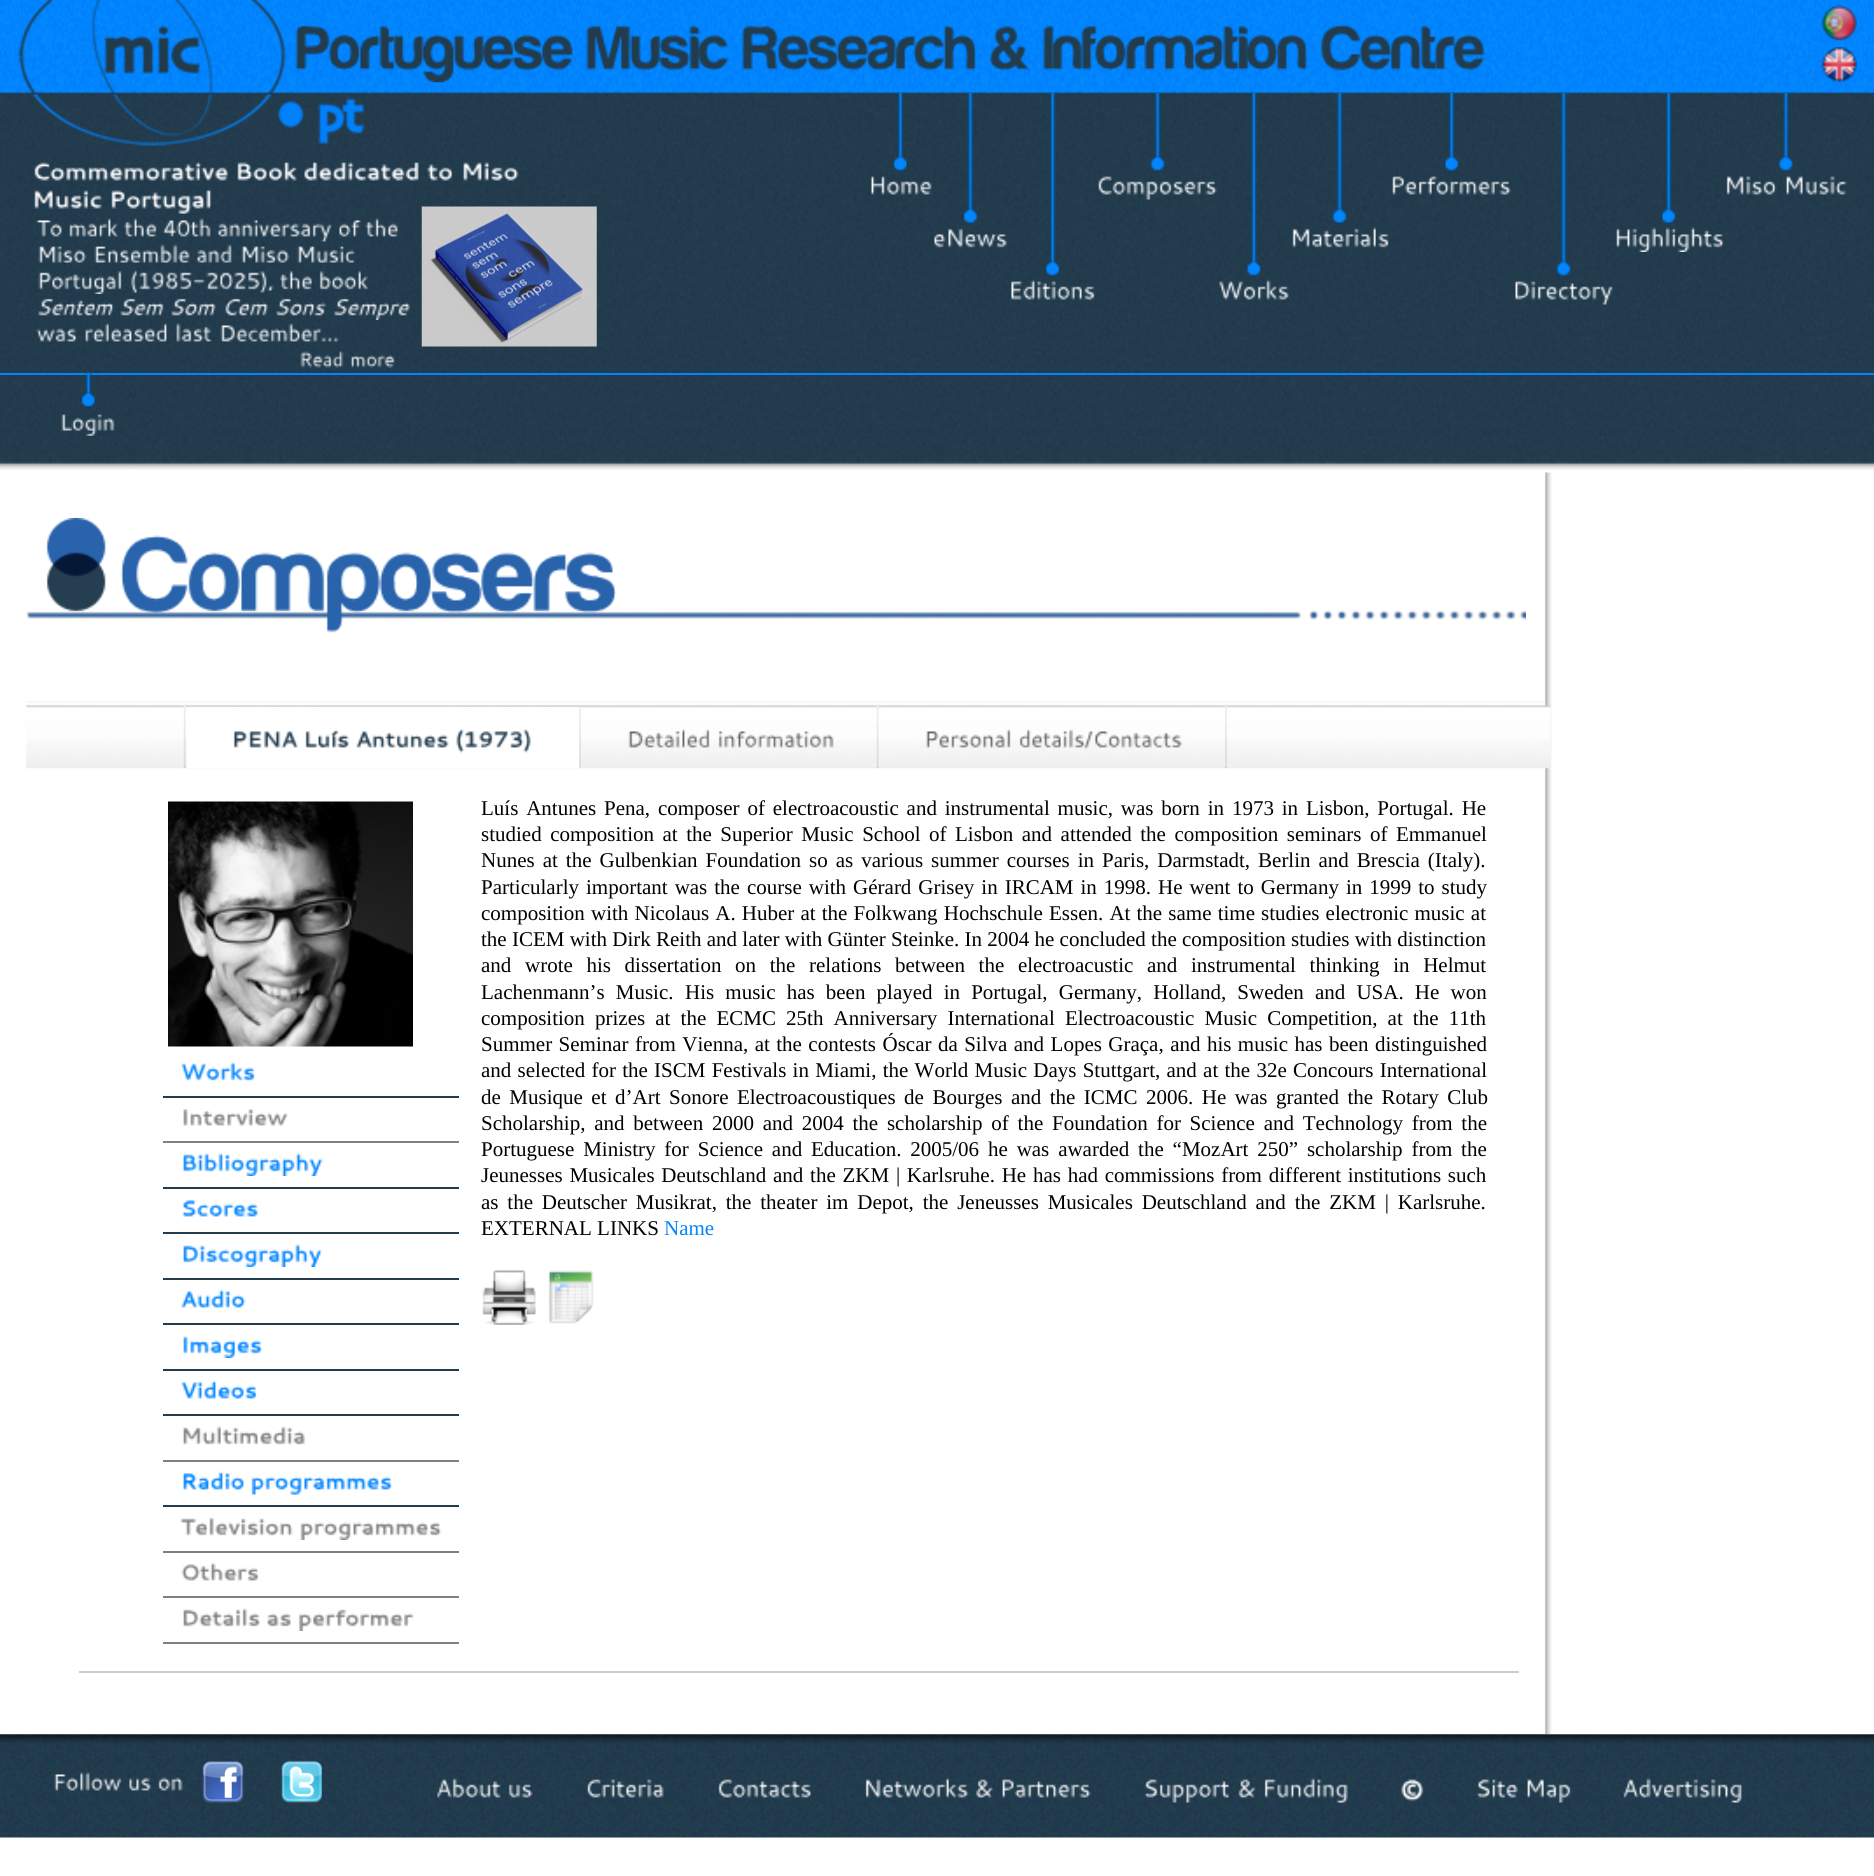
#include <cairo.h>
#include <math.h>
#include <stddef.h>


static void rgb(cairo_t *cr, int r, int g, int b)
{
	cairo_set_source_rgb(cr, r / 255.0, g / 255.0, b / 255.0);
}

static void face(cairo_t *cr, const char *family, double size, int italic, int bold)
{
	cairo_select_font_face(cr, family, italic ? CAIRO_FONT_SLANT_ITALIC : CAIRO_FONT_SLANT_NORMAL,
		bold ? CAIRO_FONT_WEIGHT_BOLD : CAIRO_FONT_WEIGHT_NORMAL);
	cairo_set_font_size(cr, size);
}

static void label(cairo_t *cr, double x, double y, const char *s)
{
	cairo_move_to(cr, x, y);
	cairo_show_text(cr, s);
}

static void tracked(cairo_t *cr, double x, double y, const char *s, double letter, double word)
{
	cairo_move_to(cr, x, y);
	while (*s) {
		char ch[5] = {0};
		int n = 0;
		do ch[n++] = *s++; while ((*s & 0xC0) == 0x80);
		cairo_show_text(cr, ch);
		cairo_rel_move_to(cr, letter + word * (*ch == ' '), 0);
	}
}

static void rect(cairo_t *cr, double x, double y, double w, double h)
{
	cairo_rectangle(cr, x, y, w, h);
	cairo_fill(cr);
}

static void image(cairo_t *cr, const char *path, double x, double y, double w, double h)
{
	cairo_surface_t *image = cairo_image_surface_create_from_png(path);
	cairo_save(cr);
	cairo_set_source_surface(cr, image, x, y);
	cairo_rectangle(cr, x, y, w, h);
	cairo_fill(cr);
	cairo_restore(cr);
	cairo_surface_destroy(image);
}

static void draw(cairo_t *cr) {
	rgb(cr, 255, 255, 255);
	cairo_paint(cr);
	image(cr, "image0.png", 0, 0, 1874, 470);
	image(cr, "image1.png", 18, 0, 347, 146);
	image(cr, "image2.png", 34, 162, 194, 19);
	image(cr, "image3.png", 237, 162, 61, 19);
	image(cr, "image4.png", 304, 162, 115, 19);
	image(cr, "image5.png", 427, 164, 26, 17);
	image(cr, "image6.png", 463, 162, 56, 19);
	image(cr, "image7.png", 34, 190, 68, 19);
	image(cr, "image8.png", 111, 189, 101, 25);
	image(cr, "image9.png", 36, 220, 26, 17);
	image(cr, "image10.png", 69, 218, 49, 19);
	image(cr, "image11.png", 124, 218, 33, 19);
	image(cr, "image12.png", 162, 218, 49, 19);
	image(cr, "image13.png", 217, 220, 115, 22);
	image(cr, "image14.png", 338, 220, 23, 17);
	image(cr, "image15.png", 365, 218, 33, 19);
	image(cr, "image16.png", 38, 246, 49, 17);
	image(cr, "image17.png", 94, 244, 96, 19);
	image(cr, "image18.png", 196, 244, 36, 19);
	image(cr, "image19.png", 241, 246, 49, 17);
	image(cr, "image20.png", 297, 246, 59, 17);
	image(cr, "image21.png", 38, 271, 84, 23);
	image(cr, "image22.png", 130, 270, 144, 24);
	image(cr, "image23.png", 280, 270, 32, 20);
	image(cr, "image24.png", 319, 270, 49, 20);
	image(cr, "image25.png", 38, 298, 76, 18);
	image(cr, "image26.png", 120, 298, 44, 18);
	image(cr, "image27.png", 171, 298, 45, 18);
	image(cr, "image28.png", 225, 298, 44, 18);
	image(cr, "image29.png", 276, 298, 50, 18);
	image(cr, "image30.png", 334, 298, 76, 22);
	image(cr, "image31.png", 36, 328, 41, 14);
	image(cr, "image32.png", 85, 323, 82, 19);
	image(cr, "image33.png", 176, 323, 36, 19);
	image(cr, "image34.png", 220, 323, 119, 19);
	image(cr, "image35.png", 300, 351, 44, 17);
	image(cr, "image36.png", 351, 355, 44, 13);
	image(cr, "image37.png", 421, 206, 176, 141);
	image(cr, "image38.png", 892, 92, 16, 80);
	image(cr, "image39.png", 871, 176, 61, 19);
	image(cr, "image40.png", 962, 93, 16, 131);
	image(cr, "image41.png", 934, 228, 73, 20);
	image(cr, "image42.png", 1044, 93, 16, 184);
	image(cr, "image43.png", 1011, 279, 84, 21);
	image(cr, "image44.png", 1149, 93, 16, 79);
	image(cr, "image45.png", 1097, 176, 120, 24);
	image(cr, "image46.png", 1246, 92, 16, 185);
	image(cr, "image47.png", 1219, 279, 70, 21);
	image(cr, "image48.png", 1331, 93, 16, 131);
	image(cr, "image49.png", 1292, 227, 97, 21);
	image(cr, "image50.png", 1443, 93, 16, 79);
	image(cr, "image51.png", 1392, 176, 119, 19);
	image(cr, "image52.png", 1555, 93, 16, 184);
	image(cr, "image53.png", 1515, 281, 98, 24);
	image(cr, "image54.png", 1660, 93, 16, 131);
	image(cr, "image55.png", 1616, 227, 108, 25);
	image(cr, "image56.png", 1778, 93, 16, 79);
	image(cr, "image57.png", 1726, 176, 51, 19);
	image(cr, "image58.png", 1786, 176, 61, 19);
	image(cr, "image59.png", 295, 25, 278, 58);
	image(cr, "image60.png", 585, 25, 144, 46);
	image(cr, "image61.png", 741, 25, 236, 46);
	image(cr, "image62.png", 990, 25, 39, 46);
	image(cr, "image63.png", 1042, 25, 266, 46);
	image(cr, "image64.png", 1320, 24, 165, 47);
	image(cr, "image65.png", 1821, 5, 36, 36);
	image(cr, "image66.png", 1821, 47, 36, 36);
	rgb(cr, 0, 132, 255);
	rect(cr, 0, 373, 1874, 2);
	image(cr, "image67.png", 80, 372, 16, 36);
	image(cr, "image68.png", 61, 414, 54, 22);
	image(cr, "image104.png", 0, 1734, 1874, 9);
	image(cr, "image69.png", 1545, 472, 329, 1263);
	image(cr, "image70.png", 26, 518, 1500, 102);
	image(cr, "image71.png", 120, 535, 497, 98);
	image(cr, "image72.png", 26, 701, 1525, 68);
	image(cr, "image73.png", 183, 703, 3, 66);
	rgb(cr, 255, 255, 255);
	rect(cr, 187, 707, 393, 61);
	image(cr, "image74.png", 579, 707, 2, 62);
	image(cr, "image75.png", 233, 731, 65, 17);
	image(cr, "image76.png", 305, 729, 44, 19);
	image(cr, "image77.png", 356, 731, 93, 17);
	image(cr, "image78.png", 456, 729, 75, 24);
	image(cr, "image73.png", 876, 703, 3, 66);
	image(cr, "image79.png", 628, 729, 82, 19);
	image(cr, "image80.png", 718, 731, 116, 17);
	image(cr, "image81.png", 1225, 703, 2, 66);
	image(cr, "image82.png", 925, 729, 86, 19);
	image(cr, "image83.png", 1019, 729, 163, 21);
	image(cr, "image84.png", 168, 801, 245, 246);
	rgb(cr, 34, 60, 78);
	rect(cr, 163, 1096, 296, 2);
	image(cr, "image85.png", 181, 1062, 74, 19);
	rgb(cr, 128, 128, 128);
	rect(cr, 163, 1141, 296, 2);
	image(cr, "image86.png", 183, 1109, 105, 17);
	rgb(cr, 34, 60, 78);
	rect(cr, 163, 1187, 296, 2);
	image(cr, "image87.png", 182, 1153, 141, 23);
	rect(cr, 163, 1232, 296, 2);
	image(cr, "image88.png", 182, 1200, 76, 17);
	rect(cr, 163, 1278, 296, 2);
	image(cr, "image89.png", 183, 1244, 140, 23);
	rect(cr, 163, 1323, 296, 2);
	image(cr, "image90.png", 181, 1289, 65, 19);
	rect(cr, 163, 1369, 296, 2);
	image(cr, "image91.png", 183, 1336, 79, 22);
	rect(cr, 163, 1414, 296, 2);
	image(cr, "image92.png", 181, 1380, 77, 19);
	rgb(cr, 128, 128, 128);
	rect(cr, 163, 1460, 296, 2);
	image(cr, "image93.png", 182, 1426, 123, 19);
	rgb(cr, 34, 60, 78);
	rect(cr, 163, 1505, 296, 2);
	image(cr, "image94.png", 182, 1471, 62, 19);
	image(cr, "image95.png", 251, 1476, 142, 19);
	rgb(cr, 128, 128, 128);
	rect(cr, 163, 1551, 296, 2);
	image(cr, "image96.png", 180, 1517, 113, 19);
	image(cr, "image97.png", 300, 1522, 142, 18);
	rect(cr, 163, 1596, 296, 2);
	image(cr, "image98.png", 181, 1562, 79, 19);
	rect(cr, 163, 1642, 296, 2);
	image(cr, "image99.png", 183, 1608, 77, 19);
	image(cr, "image100.png", 267, 1613, 24, 14);
	image(cr, "image101.png", 298, 1609, 116, 22);
	rgb(cr, 204, 204, 204);
	rect(cr, 79, 1671, 1440, 2);
	face(cr, "Liberation Serif", 21, 0, 0);
	rgb(cr, 0, 0, 0);
	tracked(cr, 481, 815, "Luís Antunes Pena, composer of electroacoustic and instrumental music, was born in 1973 in Lisbon, Portugal. He", 0, 2.6);
	tracked(cr, 481, 841, "studied composition at the Superior Music School of Lisbon and attended the composition seminars of Emmanuel", 0, 3.25);
	tracked(cr, 481, 867, "Nunes at the Gulbenkian Foundation so as various summer courses in Paris, Darmstadt, Berlin and Brescia (Italy).", 0, 2.75);
	tracked(cr, 481, 894, "Particularly important was the course with Gérard Grisey in IRCAM in 1998. He went to Germany in 1999 to study", 0, 1.75);
	tracked(cr, 481, 920, "composition with Nicolaus A. Huber at the Folkwang Hochschule Essen. At the same time studies electronic music at", 0, 0.9);
	label(cr, 481, 946, "the ICEM with Dirk Reith and later with Günter Steinke. In 2004 he concluded the composition studies with distinction");
	tracked(cr, 481, 972, "and wrote his dissertation on the relations between the electroacustic and instrumental thinking in Helmut", 0, 8.4);
	tracked(cr, 481, 999, "Lachenmann’s Music.", 0, 5.9);
	tracked(cr, 685, 999, "His music has been played in Portugal, Germany, Holland, Sweden and USA. He won", 0, 5.9);
	tracked(cr, 481, 1025, "composition prizes at the ECMC 25th Anniversary International Electroacoustic Music Competition, at the 11th", 0, 4.9);
	tracked(cr, 481, 1051, "Summer Seminar from Vienna, at the contests Óscar da Silva and Lopes Graça, and his music has been distinguished", 0, 1.2);
	tracked(cr, 481, 1077, "and selected for the ISCM Festivals in Miami, the World Music Days Stuttgart, and at the 32e Concours International", 0, 1);
	tracked(cr, 481, 1104, "de Musique et d’Art Sonore Electroacoustiques de Bourges and the ICMC 2006. He was granted the Rotary Club", 0, 3.25);
	tracked(cr, 481, 1130, "Scholarship, and between 2000 and 2004 the scholarship of the Foundation for Science and Technology from the", 0, 3.5);
	tracked(cr, 481, 1156, "Portuguese Ministry for Science and Education. 2005/06 he was awarded the “MozArt 250” scholarship from the", 0, 3.6);
	tracked(cr, 481, 1182, "Jeunesses Musicales Deutschland and the ZKM | Karlsruhe. He has had commissions from different institutions such", 0, 1.5);
	tracked(cr, 481, 1209, "as the Deutscher Musikrat, the theater im Depot, the Jeneusses Musicales Deutschland and the ZKM | Karlsruhe.", 0, 3.6);
	label(cr, 481, 1235, "EXTERNAL LINKS");
	rgb(cr, 0, 132, 255);
	label(cr, 664, 1235, "Name");
	image(cr, "image102.png", 482, 1270, 54, 55);
	image(cr, "image103.png", 548, 1270, 46, 54);
	image(cr, "image105.png", 0, 1743, 1874, 95);
	image(cr, "image106.png", 54, 1772, 68, 19);
	image(cr, "image107.png", 129, 1777, 22, 14);
	image(cr, "image108.png", 157, 1777, 26, 14);
	image(cr, "image109.png", 202, 1761, 42, 42);
	image(cr, "image110.png", 281, 1760, 42, 44);
	image(cr, "image111.png", 437, 1777, 64, 21);
	image(cr, "image112.png", 508, 1784, 25, 14);
	image(cr, "image113.png", 586, 1779, 78, 19);
	image(cr, "image114.png", 718, 1779, 93, 19);
	image(cr, "image115.png", 865, 1777, 104, 21);
	image(cr, "image116.png", 976, 1779, 17, 19);
	image(cr, "image117.png", 1002, 1779, 89, 19);
	image(cr, "image118.png", 1144, 1779, 86, 24);
	image(cr, "image119.png", 1238, 1779, 18, 19);
	image(cr, "image120.png", 1264, 1777, 84, 26);
	image(cr, "image121.png", 1401, 1779, 23, 23);
	image(cr, "image122.png", 1476, 1779, 42, 19);
	image(cr, "image123.png", 1527, 1779, 44, 24);
	image(cr, "image124.png", 1623, 1777, 119, 26);
}

int main(void) {
	cairo_surface_t *surface = cairo_image_surface_create(CAIRO_FORMAT_RGB24, 1874, 1876);
	cairo_t *cr = cairo_create(surface);
	cairo_font_options_t *options = cairo_font_options_create();
	cairo_font_options_set_hint_metrics(options, CAIRO_HINT_METRICS_OFF);
	cairo_font_options_set_hint_style(options, CAIRO_HINT_STYLE_NONE);
	cairo_set_font_options(cr, options);
	cairo_set_miter_limit(cr, 4);
	draw(cr);
	cairo_surface_write_to_png(surface, "render.png");
	cairo_font_options_destroy(options);
	cairo_destroy(cr);
	cairo_surface_destroy(surface);
	return 0;
}
